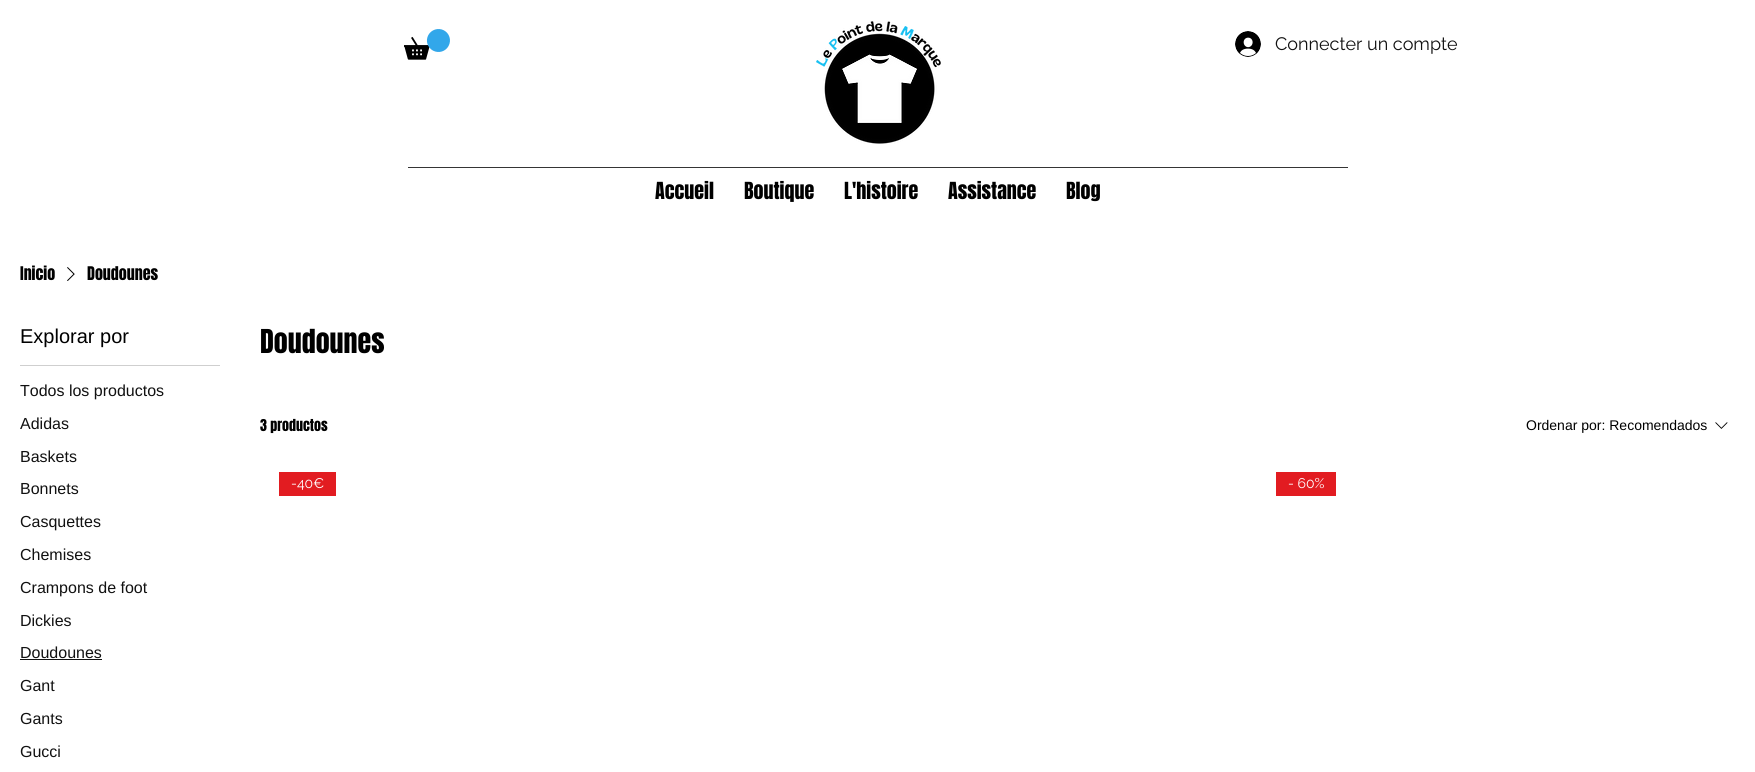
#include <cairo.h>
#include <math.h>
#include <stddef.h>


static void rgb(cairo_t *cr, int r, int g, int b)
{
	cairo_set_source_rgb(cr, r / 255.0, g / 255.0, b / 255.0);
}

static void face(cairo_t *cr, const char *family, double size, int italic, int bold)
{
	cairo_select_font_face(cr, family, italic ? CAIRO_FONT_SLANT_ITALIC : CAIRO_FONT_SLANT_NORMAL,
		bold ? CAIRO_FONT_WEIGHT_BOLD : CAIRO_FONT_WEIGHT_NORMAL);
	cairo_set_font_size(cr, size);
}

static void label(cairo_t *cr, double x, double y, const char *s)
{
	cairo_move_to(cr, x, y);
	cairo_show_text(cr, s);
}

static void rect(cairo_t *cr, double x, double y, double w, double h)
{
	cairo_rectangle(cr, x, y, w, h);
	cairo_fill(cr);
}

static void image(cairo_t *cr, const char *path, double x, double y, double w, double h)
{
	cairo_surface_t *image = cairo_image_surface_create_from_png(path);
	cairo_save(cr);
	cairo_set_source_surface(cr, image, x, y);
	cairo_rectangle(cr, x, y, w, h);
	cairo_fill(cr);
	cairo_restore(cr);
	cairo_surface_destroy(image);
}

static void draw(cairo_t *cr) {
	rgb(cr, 255, 255, 255);
	cairo_paint(cr);
	image(cr, "image0.png", 404, 29, 46, 31);
	image(cr, "image1.png", 816, 21, 125, 123);
	image(cr, "image2.png", 1235, 31, 26, 26);
	face(cr, "Raleway", 18, 0, 0);
	rgb(cr, 17, 17, 17);
	label(cr, 1275, 50, "Connecter un compte");
	rgb(cr, 53, 53, 53);
	rect(cr, 408, 167, 940, 1);
	face(cr, "Anton", 20, 0, 0);
	rgb(cr, 0, 0, 0);
	label(cr, 655, 199, "Accueil");
	label(cr, 744, 199, "Boutique");
	label(cr, 844, 199, "L'histoire");
	label(cr, 948, 199, "Assistance");
	label(cr, 1066, 199, "Blog");
	face(cr, "Anton", 16, 0, 0);
	label(cr, 20, 280, "Inicio");
	image(cr, "image3.png", 67, 267, 8, 14);
	label(cr, 87, 280, "Doudounes");
	rgb(cr, 207, 207, 207);
	rect(cr, 20, 365, 200, 1);
	face(cr, "Liberation Sans", 20, 0, 0);
	rgb(cr, 0, 0, 0);
	label(cr, 20, 343, "Explorar por");
	face(cr, "Liberation Sans", 16, 0, 0);
	rgb(cr, 17, 17, 17);
	label(cr, 20, 396, "Todos los productos");
	label(cr, 20, 429, "Adidas");
	label(cr, 20, 462, "Baskets");
	label(cr, 20, 494, "Bonnets");
	label(cr, 20, 527, "Casquettes");
	label(cr, 20, 560, "Chemises");
	label(cr, 20, 593, "Crampons de foot");
	label(cr, 20, 626, "Dickies");
	label(cr, 20, 658, "Doudounes");
	rect(cr, 20, 659, 82, 1);
	label(cr, 20, 691, "Gant");
	label(cr, 20, 724, "Gants");
	label(cr, 20, 757, "Gucci");
	face(cr, "Anton", 28, 0, 0);
	rgb(cr, 0, 0, 0);
	label(cr, 260, 353, "Doudounes");
	face(cr, "Anton", 14, 0, 0);
	label(cr, 260, 431, "3 productos");
	face(cr, "Liberation Sans", 14, 0, 0);
	label(cr, 1526, 430, "Ordenar por: Recomendados");
	image(cr, "image4.png", 1715, 422, 13, 7);
	rgb(cr, 226, 28, 33);
	rect(cr, 279, 472, 57, 24);
	face(cr, "Raleway", 14, 0, 0);
	rgb(cr, 255, 255, 255);
	label(cr, 291, 488, "-40€");
	rgb(cr, 226, 28, 33);
	rect(cr, 1276, 472, 60, 24);
	rgb(cr, 255, 255, 255);
	label(cr, 1288, 488, "- 60%");
}

int main(void) {
	cairo_surface_t *surface = cairo_image_surface_create(CAIRO_FORMAT_RGB24, 1755, 772);
	cairo_t *cr = cairo_create(surface);
	cairo_font_options_t *options = cairo_font_options_create();
	cairo_font_options_set_hint_metrics(options, CAIRO_HINT_METRICS_OFF);
	cairo_font_options_set_hint_style(options, CAIRO_HINT_STYLE_NONE);
	cairo_set_font_options(cr, options);
	cairo_set_miter_limit(cr, 4);
	draw(cr);
	cairo_surface_write_to_png(surface, "render.png");
	cairo_font_options_destroy(options);
	cairo_destroy(cr);
	cairo_surface_destroy(surface);
	return 0;
}
